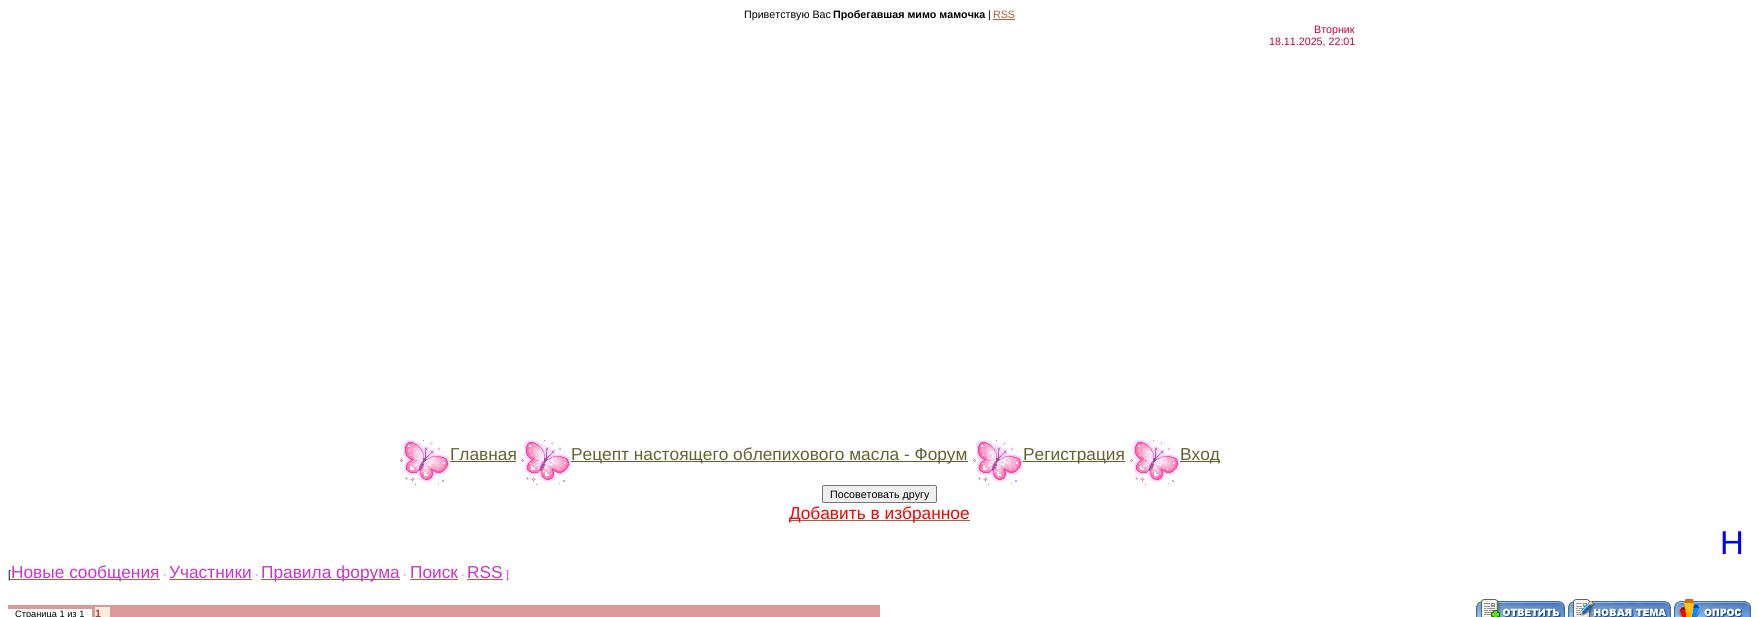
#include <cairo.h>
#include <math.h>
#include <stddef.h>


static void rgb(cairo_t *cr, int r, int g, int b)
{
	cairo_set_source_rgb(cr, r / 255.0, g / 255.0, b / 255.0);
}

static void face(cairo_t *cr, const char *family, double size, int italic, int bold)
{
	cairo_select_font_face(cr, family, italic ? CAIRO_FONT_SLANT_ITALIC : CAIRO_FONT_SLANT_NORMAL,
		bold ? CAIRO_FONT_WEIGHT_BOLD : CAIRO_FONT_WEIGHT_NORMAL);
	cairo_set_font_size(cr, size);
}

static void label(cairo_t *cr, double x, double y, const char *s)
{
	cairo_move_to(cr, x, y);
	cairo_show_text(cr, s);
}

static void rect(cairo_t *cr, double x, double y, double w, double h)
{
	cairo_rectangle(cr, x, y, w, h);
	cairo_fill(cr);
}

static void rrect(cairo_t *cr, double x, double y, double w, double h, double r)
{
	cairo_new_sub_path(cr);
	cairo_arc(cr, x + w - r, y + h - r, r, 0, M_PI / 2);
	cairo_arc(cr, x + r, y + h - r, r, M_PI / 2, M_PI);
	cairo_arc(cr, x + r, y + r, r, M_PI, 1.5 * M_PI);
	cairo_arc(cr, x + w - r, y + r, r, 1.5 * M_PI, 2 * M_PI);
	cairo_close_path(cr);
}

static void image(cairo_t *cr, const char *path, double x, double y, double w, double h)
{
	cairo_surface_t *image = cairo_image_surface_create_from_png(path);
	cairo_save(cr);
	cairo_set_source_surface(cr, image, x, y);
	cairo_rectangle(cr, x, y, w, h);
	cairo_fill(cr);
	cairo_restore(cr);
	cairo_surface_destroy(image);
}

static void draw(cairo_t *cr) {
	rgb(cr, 255, 255, 255);
	cairo_paint(cr);
	face(cr, "Liberation Sans", 10.7, 0, 0);
	rgb(cr, 0, 0, 0);
	label(cr, 744, 18, "Приветствую Вас");
	face(cr, "Liberation Sans", 10.7, 0, 1);
	label(cr, 833, 18, "Пробегавшая мимо мамочка");
	face(cr, "Liberation Sans", 10.7, 0, 0);
	label(cr, 988, 18, "|");
	rgb(cr, 175, 94, 56);
	label(cr, 993, 18, "RSS");
	rect(cr, 993, 19, 22, 1);
	rgb(cr, 204, 0, 51);
	label(cr, 1314, 33, "Вторник");
	label(cr, 1269, 45, "18.11.2025, 22:01");
	image(cr, "image0.png", 400, 440, 50, 45);
	face(cr, "Liberation Sans", 17.3, 0, 0);
	rgb(cr, 95, 100, 49);
	label(cr, 450, 460, "Главная");
	rect(cr, 450, 461, 66, 1);
	image(cr, "image0.png", 521, 440, 50, 45);
	rect(cr, 571, 461, 397, 1);
	label(cr, 571, 460, "Рецепт настоящего облепихового масла - Форум");
	image(cr, "image0.png", 973, 440, 50, 45);
	rect(cr, 1023, 461, 102, 1);
	label(cr, 1023, 460, "Регистрация");
	image(cr, "image0.png", 1130, 440, 50, 45);
	rect(cr, 1180, 461, 40, 1);
	label(cr, 1180, 460, "Вход");
	rgb(cr, 239, 239, 239);
	rrect(cr, 822.5, 485.5, 114, 17, 1.5);
	cairo_fill_preserve(cr);
	rgb(cr, 118, 118, 118);
	cairo_set_line_width(cr, 1);
	cairo_stroke(cr);
	face(cr, "Liberation Sans", 10.7, 0, 0);
	rgb(cr, 0, 0, 0);
	label(cr, 830, 498, "Посоветовать другу");
	rgb(cr, 175, 94, 56);
	rect(cr, 789, 520, 181, 1);
	face(cr, "Liberation Sans", 17.3, 0, 0);
	rgb(cr, 255, 0, 0);
	label(cr, 789, 519, "Добавить в избранное");
	face(cr, "Liberation Sans", 33, 0, 0);
	rgb(cr, 0, 0, 255);
	label(cr, 1720, 554, "Н");
	rgb(cr, 175, 94, 56);
	rect(cr, 11, 579, 149, 1);
	face(cr, "Liberation Sans", 17.3, 0, 0);
	rgb(cr, 204, 51, 204);
	label(cr, 11, 578, "Новые сообщения");
	face(cr, "Liberation Sans", 10.7, 0, 0);
	rgb(cr, 0, 0, 0);
	label(cr, 8, 578, "[");
	face(cr, "Liberation Sans", 17.3, 0, 0);
	rgb(cr, 204, 51, 204);
	label(cr, 467, 578, "RSS");
	rgb(cr, 175, 94, 56);
	rect(cr, 467, 579, 36, 1);
	face(cr, "Liberation Sans", 10.7, 0, 0);
	rgb(cr, 204, 51, 204);
	label(cr, 506, 578, "]");
	rgb(cr, 221, 153, 153);
	rect(cr, 8, 605, 872, 12);
	rgb(cr, 255, 255, 255);
	rect(cr, 8, 609, 84, 8);
	face(cr, "Liberation Sans", 9.25, 0, 0);
	rgb(cr, 0, 0, 0);
	label(cr, 15, 617, "Страница 1 из 1");
	rgb(cr, 255, 235, 221);
	rect(cr, 95, 607, 15, 10);
	face(cr, "Liberation Sans", 10.7, 0, 1);
	rgb(cr, 147, 74, 74);
	label(cr, 95, 617, "1");
	image(cr, "image1.png", 1476, 599, 89, 18);
	image(cr, "image2.png", 1568, 599, 103, 18);
	image(cr, "image3.png", 1674, 599, 77, 18);
	face(cr, "Liberation Sans", 10.7, 0, 0);
	rgb(cr, 204, 51, 204);
	label(cr, 461, 578, "·");
	label(cr, 403, 578, "·");
	face(cr, "Liberation Sans", 17.3, 0, 0);
	label(cr, 410, 578, "Поиск");
	rgb(cr, 175, 94, 56);
	rect(cr, 410, 579, 48, 1);
	face(cr, "Liberation Sans", 10.7, 0, 0);
	rgb(cr, 204, 51, 204);
	label(cr, 255, 578, "·");
	rgb(cr, 175, 94, 56);
	rect(cr, 261, 579, 139, 1);
	face(cr, "Liberation Sans", 17.3, 0, 0);
	rgb(cr, 204, 51, 204);
	label(cr, 261, 578, "Правила форума");
	face(cr, "Liberation Sans", 10.7, 0, 0);
	label(cr, 163, 578, "·");
	face(cr, "Liberation Sans", 17.3, 0, 0);
	label(cr, 169, 578, "Участники");
	rgb(cr, 175, 94, 56);
	rect(cr, 169, 579, 83, 1);
}

int main(void) {
	cairo_surface_t *surface = cairo_image_surface_create(CAIRO_FORMAT_RGB24, 1759, 617);
	cairo_t *cr = cairo_create(surface);
	cairo_font_options_t *options = cairo_font_options_create();
	cairo_font_options_set_hint_metrics(options, CAIRO_HINT_METRICS_OFF);
	cairo_font_options_set_hint_style(options, CAIRO_HINT_STYLE_NONE);
	cairo_set_font_options(cr, options);
	cairo_set_miter_limit(cr, 4);
	draw(cr);
	cairo_surface_write_to_png(surface, "render.png");
	cairo_font_options_destroy(options);
	cairo_destroy(cr);
	cairo_surface_destroy(surface);
	return 0;
}
